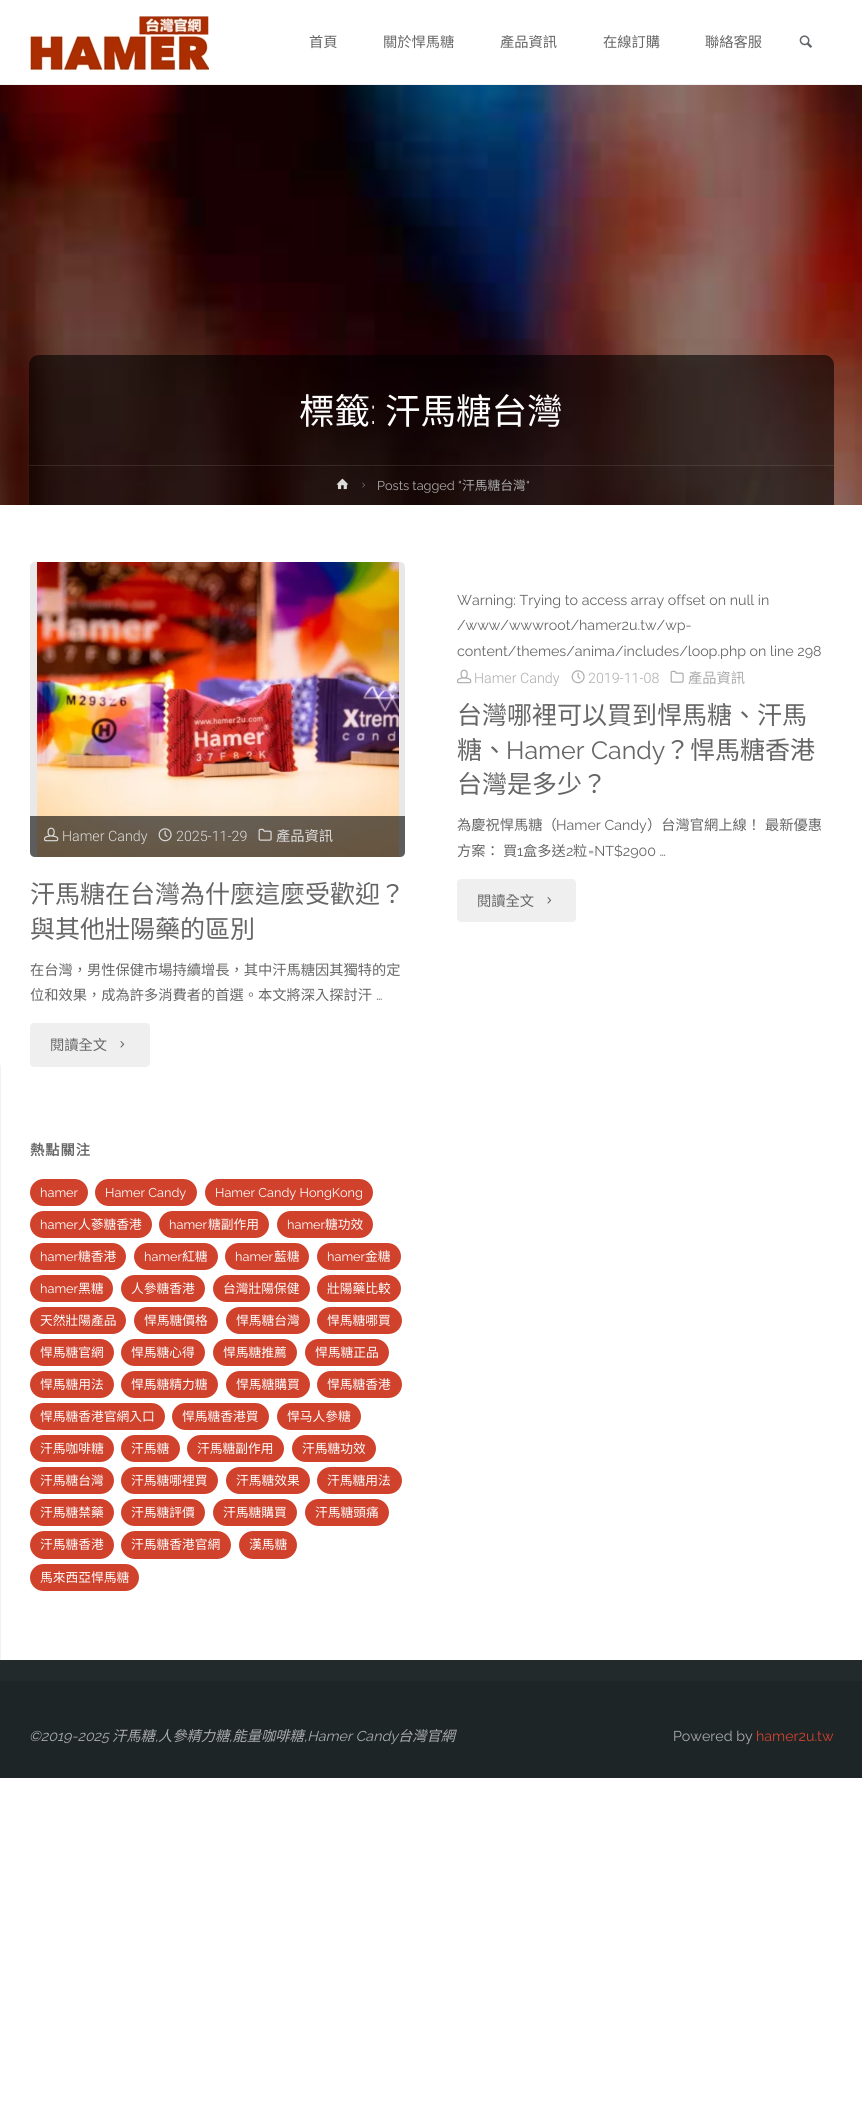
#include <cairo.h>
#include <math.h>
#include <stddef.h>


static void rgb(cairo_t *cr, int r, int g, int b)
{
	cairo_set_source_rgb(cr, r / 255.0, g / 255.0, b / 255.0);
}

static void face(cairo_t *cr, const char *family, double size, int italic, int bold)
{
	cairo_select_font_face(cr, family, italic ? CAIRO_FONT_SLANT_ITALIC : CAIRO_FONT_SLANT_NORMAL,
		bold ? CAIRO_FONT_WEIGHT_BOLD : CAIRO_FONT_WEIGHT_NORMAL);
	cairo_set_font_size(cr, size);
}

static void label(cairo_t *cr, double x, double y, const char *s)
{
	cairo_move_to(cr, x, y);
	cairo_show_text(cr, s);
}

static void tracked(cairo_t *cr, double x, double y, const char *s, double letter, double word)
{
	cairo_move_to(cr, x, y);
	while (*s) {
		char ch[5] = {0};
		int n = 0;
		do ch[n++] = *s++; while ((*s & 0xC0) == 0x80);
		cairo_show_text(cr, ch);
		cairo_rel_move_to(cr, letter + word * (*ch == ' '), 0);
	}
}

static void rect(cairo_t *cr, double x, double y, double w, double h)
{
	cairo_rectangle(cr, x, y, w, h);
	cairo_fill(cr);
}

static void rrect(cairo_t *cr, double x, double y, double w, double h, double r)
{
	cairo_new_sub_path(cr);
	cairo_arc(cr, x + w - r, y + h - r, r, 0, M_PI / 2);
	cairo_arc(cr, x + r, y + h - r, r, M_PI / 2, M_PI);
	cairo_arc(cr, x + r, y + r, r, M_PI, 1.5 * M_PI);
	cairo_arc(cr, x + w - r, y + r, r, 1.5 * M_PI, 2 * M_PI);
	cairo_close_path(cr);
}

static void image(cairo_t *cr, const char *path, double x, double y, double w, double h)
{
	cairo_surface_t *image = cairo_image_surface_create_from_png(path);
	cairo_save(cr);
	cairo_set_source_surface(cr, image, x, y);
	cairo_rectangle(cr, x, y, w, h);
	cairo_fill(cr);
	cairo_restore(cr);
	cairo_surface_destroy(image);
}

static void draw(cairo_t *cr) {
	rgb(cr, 255, 255, 255);
	cairo_paint(cr);
	rgb(cr, 242, 242, 242);
	rect(cr, 0, 84, 862, 1);
	image(cr, "image0.png", 30, 16, 179, 55);
	face(cr, "Noto Sans CJK TC", 14.25, 0, 0);
	rgb(cr, 102, 102, 102);
	label(cr, 309, 47, "首頁");
	label(cr, 383, 47, "關於悍馬糖");
	label(cr, 500, 47, "產品資訊");
	label(cr, 603, 47, "在線訂購");
	label(cr, 705, 47, "聯絡客服");
	image(cr, "image1.png", 799, 35, 13, 13);
	image(cr, "image2.png", 0, 85, 862, 420);
	cairo_set_source_rgba(cr, 0, 0, 0, 0.6);
	cairo_new_path(cr);
	cairo_move_to(cr, 39, 355);
	cairo_line_to(cr, 824, 355);
	cairo_curve_to(cr, 829.5, 355, 834, 359.5, 834, 365);
	cairo_line_to(cr, 834, 505);
	cairo_line_to(cr, 29, 505);
	cairo_line_to(cr, 29, 365);
	cairo_curve_to(cr, 29, 359.5, 33.5, 355, 39, 355);
	cairo_close_path(cr);
	cairo_fill(cr);
	face(cr, "Noto Sans CJK TC", 35.5, 0, 0);
	rgb(cr, 255, 255, 255);
	label(cr, 299, 424, "標籤");
	face(cr, "Raleway Light", 35.5, 0, 0);
	label(cr, 370, 424, ":");
	face(cr, "Noto Sans CJK TC", 35.5, 0, 0);
	label(cr, 385, 424, "汗馬糖台灣");
	cairo_set_source_rgba(cr, 0, 0, 0, 0.05);
	rect(cr, 686, 465, 148, 40);
	cairo_set_source_rgba(cr, 1, 1, 1, 0.1);
	rect(cr, 29, 465, 805, 1);
	image(cr, "image3.png", 336, 478, 13, 12);
	image(cr, "image4.png", 362, 482, 3, 6);
	face(cr, "Raleway", 12.75, 0, 0);
	rgb(cr, 171, 171, 171);
	label(cr, 377, 490, "Posts tagged \"");
	face(cr, "Noto Sans CJK TC", 12.75, 0, 0);
	label(cr, 462, 490, "汗馬糖台灣");
	face(cr, "Raleway", 12.75, 0, 0);
	label(cr, 526, 490, "\"");
	face(cr, "Raleway", 14.25, 0, 0);
	rgb(cr, 102, 102, 102);
	label(cr, 457, 605, "Warning: Trying to access array offset on null in");
	label(cr, 457, 630, "/www/wwwroot/hamer2u.tw/wp-");
	label(cr, 457, 656, "content/themes/anima/includes/loop.php on line 298");
	image(cr, "image5.png", 457, 669, 15, 15);
	face(cr, "Roboto Light", 14.25, 0, 0);
	rgb(cr, 171, 171, 171);
	label(cr, 474, 683, "Hamer Candy");
	image(cr, "image6.png", 571, 670, 14, 14);
	label(cr, 588, 683, "2019-11-08");
	image(cr, "image7.png", 670, 670, 14, 13);
	face(cr, "Noto Sans CJK TC", 14.25, 0, 0);
	label(cr, 688, 683, "產品資訊");
	face(cr, "Noto Sans CJK TC", 25, 0, 0);
	rgb(cr, 102, 102, 102);
	label(cr, 457, 724, "台灣哪裡可以買到悍馬糖、汗馬");
	label(cr, 457, 759, "糖、");
	face(cr, "Raleway", 25, 0, 0);
	label(cr, 506, 759, "Hamer Candy");
	face(cr, "Noto Sans CJK TC", 25, 0, 0);
	label(cr, 665, 759, "？悍馬糖香港");
	label(cr, 457, 793, "台灣是多少？");
	face(cr, "Noto Sans CJK TC", 14.25, 0, 0);
	label(cr, 457, 830, "為慶祝悍馬糖（");
	face(cr, "Raleway", 14.25, 0, 0);
	label(cr, 556, 830, "Hamer Candy");
	face(cr, "Noto Sans CJK TC", 14.25, 0, 0);
	label(cr, 647, 830, "）台灣官網上線！");
	label(cr, 765, 830, "最新優惠");
	label(cr, 457, 856, "方案：");
	label(cr, 503, 856, "買");
	face(cr, "Raleway", 14.25, 0, 0);
	label(cr, 517, 856, "1");
	face(cr, "Noto Sans CJK TC", 14.25, 0, 0);
	label(cr, 523, 856, "盒多送");
	face(cr, "Raleway", 14.25, 0, 0);
	label(cr, 566, 856, "2");
	face(cr, "Noto Sans CJK TC", 14.25, 0, 0);
	label(cr, 573, 856, "粒");
	face(cr, "Raleway", 14.25, 0, 0);
	label(cr, 588, 856, "=NT$2900 …");
	rgb(cr, 239, 239, 239);
	rrect(cr, 457, 879, 119, 43, 4);
	cairo_fill(cr);
	face(cr, "Noto Sans CJK TC", 14.25, 0, 0);
	rgb(cr, 102, 102, 102);
	label(cr, 477, 906, "閱讀全文");
	image(cr, "image8.png", 547, 897, 5, 7);
	rgb(cr, 232, 232, 232);
	rrect(cr, 30, 562, 375, 295, 5);
	cairo_fill(cr);
	image(cr, "image9.png", 37, 562, 362, 295);
	cairo_set_source_rgba(cr, 0, 0, 0, 0.6);
	cairo_new_path(cr);
	cairo_move_to(cr, 30, 816);
	cairo_line_to(cr, 405, 816);
	cairo_line_to(cr, 405, 852);
	cairo_curve_to(cr, 405, 855, 403, 857, 400, 857);
	cairo_line_to(cr, 35, 857);
	cairo_curve_to(cr, 32, 857, 30, 855, 30, 852);
	cairo_close_path(cr);
	cairo_fill(cr);
	image(cr, "image10.png", 44, 827, 15, 15);
	face(cr, "Roboto Light", 14.25, 0, 0);
	rgb(cr, 221, 221, 221);
	label(cr, 62, 841, "Hamer Candy");
	image(cr, "image11.png", 158, 828, 14, 14);
	label(cr, 176, 841, "2025-11-29");
	image(cr, "image12.png", 258, 828, 14, 13);
	face(cr, "Noto Sans CJK TC", 14.25, 0, 0);
	label(cr, 276, 841, "產品資訊");
	face(cr, "Noto Sans CJK TC", 25, 0, 0);
	rgb(cr, 102, 102, 102);
	label(cr, 30, 903, "汗馬糖在台灣為什麼這麼受歡迎？");
	label(cr, 30, 938, "與其他壯陽藥的區別");
	face(cr, "Noto Sans CJK TC", 14.25, 0, 0);
	label(cr, 30, 975, "在台灣，男性保健市場持續增長，其中汗馬糖因其獨特的定");
	label(cr, 30, 1000, "位和效果，成為許多消費者的首選。本文將深入探討汗");
	face(cr, "Raleway", 14.25, 0, 0);
	label(cr, 376, 1000, "…");
	rgb(cr, 239, 239, 239);
	rrect(cr, 30, 1023, 120, 44, 4);
	cairo_fill(cr);
	face(cr, "Noto Sans CJK TC", 14.25, 0, 0);
	rgb(cr, 102, 102, 102);
	label(cr, 50, 1050, "閱讀全文");
	image(cr, "image8.png", 120, 1041, 5, 7);
	rgb(cr, 242, 242, 242);
	rect(cr, 0, 1065, 1, 595);
	face(cr, "Noto Sans CJK TC", 14.25, 0, 1);
	rgb(cr, 102, 102, 102);
	tracked(cr, 30, 1155, "熱點關注", 1, 0);
	rgb(cr, 208, 66, 44);
	rrect(cr, 30, 1179, 58, 27, 13.5);
	cairo_fill(cr);
	face(cr, "Raleway", 12.75, 0, 0);
	rgb(cr, 255, 255, 255);
	label(cr, 40, 1197, "hamer");
	rgb(cr, 208, 66, 44);
	rrect(cr, 95, 1179, 102, 27, 13.5);
	cairo_fill(cr);
	rgb(cr, 255, 255, 255);
	label(cr, 105, 1197, "Hamer Candy");
	rgb(cr, 208, 66, 44);
	rrect(cr, 205, 1179, 168, 27, 13.5);
	cairo_fill(cr);
	rgb(cr, 255, 255, 255);
	label(cr, 215, 1197, "Hamer Candy HongKong");
	rgb(cr, 208, 66, 44);
	rrect(cr, 30, 1211, 122, 27, 13.5);
	cairo_fill(cr);
	rgb(cr, 255, 255, 255);
	label(cr, 40, 1229, "hamer");
	face(cr, "Noto Sans CJK TC", 12.75, 0, 0);
	label(cr, 78, 1229, "人蔘糖香港");
	rgb(cr, 208, 66, 44);
	rrect(cr, 159, 1211, 110, 27, 13.5);
	cairo_fill(cr);
	face(cr, "Raleway", 12.75, 0, 0);
	rgb(cr, 255, 255, 255);
	label(cr, 169, 1229, "hamer");
	face(cr, "Noto Sans CJK TC", 12.75, 0, 0);
	label(cr, 208, 1229, "糖副作用");
	rgb(cr, 208, 66, 44);
	rrect(cr, 277, 1211, 96, 27, 13.5);
	cairo_fill(cr);
	face(cr, "Raleway", 12.75, 0, 0);
	rgb(cr, 255, 255, 255);
	label(cr, 287, 1229, "hamer");
	face(cr, "Noto Sans CJK TC", 12.75, 0, 0);
	label(cr, 325, 1229, "糖功效");
	rgb(cr, 208, 66, 44);
	rrect(cr, 30, 1243, 96, 27, 13.5);
	cairo_fill(cr);
	face(cr, "Raleway", 12.75, 0, 0);
	rgb(cr, 255, 255, 255);
	label(cr, 40, 1261, "hamer");
	face(cr, "Noto Sans CJK TC", 12.75, 0, 0);
	label(cr, 78, 1261, "糖香港");
	rgb(cr, 208, 66, 44);
	rrect(cr, 134, 1243, 84, 27, 13.5);
	cairo_fill(cr);
	face(cr, "Raleway", 12.75, 0, 0);
	rgb(cr, 255, 255, 255);
	label(cr, 144, 1261, "hamer");
	face(cr, "Noto Sans CJK TC", 12.75, 0, 0);
	label(cr, 182, 1261, "紅糖");
	rgb(cr, 208, 66, 44);
	rrect(cr, 225, 1243, 84, 27, 13.5);
	cairo_fill(cr);
	face(cr, "Raleway", 12.75, 0, 0);
	rgb(cr, 255, 255, 255);
	label(cr, 235, 1261, "hamer");
	face(cr, "Noto Sans CJK TC", 12.75, 0, 0);
	label(cr, 274, 1261, "藍糖");
	rgb(cr, 208, 66, 44);
	rrect(cr, 317, 1243, 84, 27, 13.5);
	cairo_fill(cr);
	face(cr, "Raleway", 12.75, 0, 0);
	rgb(cr, 255, 255, 255);
	label(cr, 327, 1261, "hamer");
	face(cr, "Noto Sans CJK TC", 12.75, 0, 0);
	label(cr, 365, 1261, "金糖");
	rgb(cr, 208, 66, 44);
	rrect(cr, 30, 1275, 83, 27, 13.5);
	cairo_fill(cr);
	face(cr, "Raleway", 12.75, 0, 0);
	rgb(cr, 255, 255, 255);
	label(cr, 40, 1293, "hamer");
	face(cr, "Noto Sans CJK TC", 12.75, 0, 0);
	label(cr, 78, 1293, "黑糖");
	rgb(cr, 208, 66, 44);
	rrect(cr, 121, 1275, 84, 27, 13.5);
	cairo_fill(cr);
	rgb(cr, 255, 255, 255);
	label(cr, 131, 1293, "人參糖香港");
	rgb(cr, 208, 66, 44);
	rrect(cr, 213, 1275, 97, 27, 13.5);
	cairo_fill(cr);
	rgb(cr, 255, 255, 255);
	label(cr, 223, 1293, "台灣壯陽保健");
	rgb(cr, 208, 66, 44);
	rrect(cr, 317, 1275, 84, 27, 13.5);
	cairo_fill(cr);
	rgb(cr, 255, 255, 255);
	label(cr, 327, 1293, "壯陽藥比較");
	rgb(cr, 208, 66, 44);
	rrect(cr, 30, 1307, 96, 27, 13.5);
	cairo_fill(cr);
	rgb(cr, 255, 255, 255);
	label(cr, 40, 1325, "天然壯陽產品");
	rgb(cr, 208, 66, 44);
	rrect(cr, 134, 1307, 84, 27, 13.5);
	cairo_fill(cr);
	rgb(cr, 255, 255, 255);
	label(cr, 144, 1325, "悍馬糖價格");
	rgb(cr, 208, 66, 44);
	rrect(cr, 226, 1307, 84, 27, 13.5);
	cairo_fill(cr);
	rgb(cr, 255, 255, 255);
	label(cr, 236, 1325, "悍馬糖台灣");
	rgb(cr, 208, 66, 44);
	rrect(cr, 317, 1307, 85, 27, 13.5);
	cairo_fill(cr);
	rgb(cr, 255, 255, 255);
	label(cr, 327, 1325, "悍馬糖哪買");
	rgb(cr, 208, 66, 44);
	rrect(cr, 30, 1339, 84, 27, 13.5);
	cairo_fill(cr);
	rgb(cr, 255, 255, 255);
	label(cr, 40, 1357, "悍馬糖官網");
	rgb(cr, 208, 66, 44);
	rrect(cr, 121, 1339, 84, 27, 13.5);
	cairo_fill(cr);
	rgb(cr, 255, 255, 255);
	label(cr, 131, 1357, "悍馬糖心得");
	rgb(cr, 208, 66, 44);
	rrect(cr, 213, 1339, 84, 27, 13.5);
	cairo_fill(cr);
	rgb(cr, 255, 255, 255);
	label(cr, 223, 1357, "悍馬糖推薦");
	rgb(cr, 208, 66, 44);
	rrect(cr, 305, 1339, 84, 27, 13.5);
	cairo_fill(cr);
	rgb(cr, 255, 255, 255);
	label(cr, 315, 1357, "悍馬糖正品");
	rgb(cr, 208, 66, 44);
	rrect(cr, 30, 1371, 84, 27, 13.5);
	cairo_fill(cr);
	rgb(cr, 255, 255, 255);
	label(cr, 40, 1389, "悍馬糖用法");
	rgb(cr, 208, 66, 44);
	rrect(cr, 121, 1371, 97, 27, 13.5);
	cairo_fill(cr);
	rgb(cr, 255, 255, 255);
	label(cr, 131, 1389, "悍馬糖精力糖");
	rgb(cr, 208, 66, 44);
	rrect(cr, 226, 1371, 84, 27, 13.5);
	cairo_fill(cr);
	rgb(cr, 255, 255, 255);
	label(cr, 236, 1389, "悍馬糖購買");
	rgb(cr, 208, 66, 44);
	rrect(cr, 317, 1371, 85, 27, 13.5);
	cairo_fill(cr);
	rgb(cr, 255, 255, 255);
	label(cr, 327, 1389, "悍馬糖香港");
	rgb(cr, 208, 66, 44);
	rrect(cr, 30, 1403, 135, 27, 13.5);
	cairo_fill(cr);
	rgb(cr, 255, 255, 255);
	label(cr, 40, 1421, "悍馬糖香港官網入口");
	rgb(cr, 208, 66, 44);
	rrect(cr, 172, 1403, 97, 27, 13.5);
	cairo_fill(cr);
	rgb(cr, 255, 255, 255);
	label(cr, 182, 1421, "悍馬糖香港買");
	rgb(cr, 208, 66, 44);
	rrect(cr, 277, 1403, 84, 27, 13.5);
	cairo_fill(cr);
	rgb(cr, 255, 255, 255);
	label(cr, 287, 1421, "悍马人參糖");
	rgb(cr, 208, 66, 44);
	rrect(cr, 30, 1435, 84, 27, 13.5);
	cairo_fill(cr);
	rgb(cr, 255, 255, 255);
	label(cr, 40, 1453, "汗馬咖啡糖");
	rgb(cr, 208, 66, 44);
	rrect(cr, 121, 1435, 59, 27, 13.5);
	cairo_fill(cr);
	rgb(cr, 255, 255, 255);
	label(cr, 131, 1453, "汗馬糖");
	rgb(cr, 208, 66, 44);
	rrect(cr, 187, 1435, 97, 27, 13.5);
	cairo_fill(cr);
	rgb(cr, 255, 255, 255);
	label(cr, 197, 1453, "汗馬糖副作用");
	rgb(cr, 208, 66, 44);
	rrect(cr, 292, 1435, 84, 27, 13.5);
	cairo_fill(cr);
	rgb(cr, 255, 255, 255);
	label(cr, 302, 1453, "汗馬糖功效");
	rgb(cr, 208, 66, 44);
	rrect(cr, 30, 1467, 84, 27, 13.5);
	cairo_fill(cr);
	rgb(cr, 255, 255, 255);
	label(cr, 40, 1485, "汗馬糖台灣");
	rgb(cr, 208, 66, 44);
	rrect(cr, 121, 1467, 97, 27, 13.5);
	cairo_fill(cr);
	rgb(cr, 255, 255, 255);
	label(cr, 131, 1485, "汗馬糖哪裡買");
	rgb(cr, 208, 66, 44);
	rrect(cr, 226, 1467, 84, 27, 13.5);
	cairo_fill(cr);
	rgb(cr, 255, 255, 255);
	label(cr, 236, 1485, "汗馬糖效果");
	rgb(cr, 208, 66, 44);
	rrect(cr, 317, 1467, 85, 27, 13.5);
	cairo_fill(cr);
	rgb(cr, 255, 255, 255);
	label(cr, 327, 1485, "汗馬糖用法");
	rgb(cr, 208, 66, 44);
	rrect(cr, 30, 1499, 84, 27, 13.5);
	cairo_fill(cr);
	rgb(cr, 255, 255, 255);
	label(cr, 40, 1517, "汗馬糖禁藥");
	rgb(cr, 208, 66, 44);
	rrect(cr, 121, 1499, 84, 27, 13.5);
	cairo_fill(cr);
	rgb(cr, 255, 255, 255);
	label(cr, 131, 1517, "汗馬糖評價");
	rgb(cr, 208, 66, 44);
	rrect(cr, 213, 1499, 84, 27, 13.5);
	cairo_fill(cr);
	rgb(cr, 255, 255, 255);
	label(cr, 223, 1517, "汗馬糖購買");
	rgb(cr, 208, 66, 44);
	rrect(cr, 305, 1499, 84, 27, 13.5);
	cairo_fill(cr);
	rgb(cr, 255, 255, 255);
	label(cr, 315, 1517, "汗馬糖頭痛");
	rgb(cr, 208, 66, 44);
	rrect(cr, 30, 1531, 84, 28, 14);
	cairo_fill(cr);
	rgb(cr, 255, 255, 255);
	label(cr, 40, 1549, "汗馬糖香港");
	rgb(cr, 208, 66, 44);
	rrect(cr, 121, 1531, 110, 28, 14);
	cairo_fill(cr);
	rgb(cr, 255, 255, 255);
	label(cr, 131, 1549, "汗馬糖香港官網");
	rgb(cr, 208, 66, 44);
	rrect(cr, 239, 1531, 58, 28, 14);
	cairo_fill(cr);
	rgb(cr, 255, 255, 255);
	label(cr, 249, 1549, "漢馬糖");
	rgb(cr, 208, 66, 44);
	rrect(cr, 30, 1564, 109, 27, 13.5);
	cairo_fill(cr);
	rgb(cr, 255, 255, 255);
	label(cr, 40, 1582, "馬來西亞悍馬糖");
	rgb(cr, 34, 42, 44);
	rect(cr, 0, 1660, 862, 21);
	rgb(cr, 29, 37, 39);
	rect(cr, 0, 1681, 862, 97);
	face(cr, "Raleway", 14.25, 1, 0);
	rgb(cr, 171, 171, 171);
	label(cr, 29, 1741, "©2019-2025");
	face(cr, "Noto Sans CJK TC", 14.25, 1, 0);
	label(cr, 112, 1741, "汗馬糖 人參精力糖 能量咖啡糖");
	face(cr, "Raleway", 14.25, 1, 0);
	label(cr, 304, 1741, ",Hamer Candy");
	face(cr, "Noto Sans CJK TC", 14.25, 1, 0);
	label(cr, 398, 1741, "台灣官網");
	face(cr, "Raleway", 14.25, 1, 0);
	label(cr, 155, 1741, ",");
	label(cr, 229, 1741, ",");
	face(cr, "Raleway", 14.25, 0, 0);
	label(cr, 673, 1741, "Powered by");
	rgb(cr, 208, 66, 44);
	label(cr, 756, 1741, "hamer2u.tw");
}

int main(void) {
	cairo_surface_t *surface = cairo_image_surface_create(CAIRO_FORMAT_RGB24, 862, 2119);
	cairo_t *cr = cairo_create(surface);
	cairo_font_options_t *options = cairo_font_options_create();
	cairo_font_options_set_hint_metrics(options, CAIRO_HINT_METRICS_OFF);
	cairo_font_options_set_hint_style(options, CAIRO_HINT_STYLE_NONE);
	cairo_set_font_options(cr, options);
	cairo_set_miter_limit(cr, 4);
	draw(cr);
	cairo_surface_write_to_png(surface, "render.png");
	cairo_font_options_destroy(options);
	cairo_destroy(cr);
	cairo_surface_destroy(surface);
	return 0;
}
